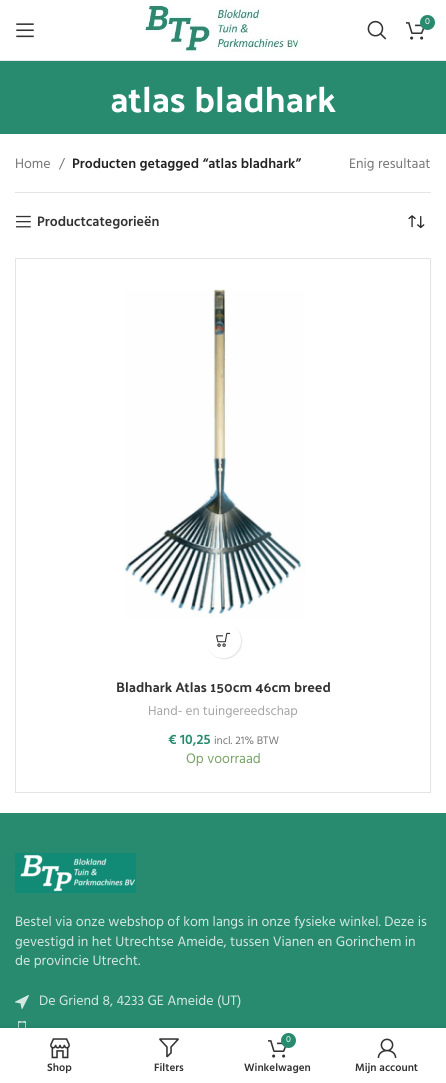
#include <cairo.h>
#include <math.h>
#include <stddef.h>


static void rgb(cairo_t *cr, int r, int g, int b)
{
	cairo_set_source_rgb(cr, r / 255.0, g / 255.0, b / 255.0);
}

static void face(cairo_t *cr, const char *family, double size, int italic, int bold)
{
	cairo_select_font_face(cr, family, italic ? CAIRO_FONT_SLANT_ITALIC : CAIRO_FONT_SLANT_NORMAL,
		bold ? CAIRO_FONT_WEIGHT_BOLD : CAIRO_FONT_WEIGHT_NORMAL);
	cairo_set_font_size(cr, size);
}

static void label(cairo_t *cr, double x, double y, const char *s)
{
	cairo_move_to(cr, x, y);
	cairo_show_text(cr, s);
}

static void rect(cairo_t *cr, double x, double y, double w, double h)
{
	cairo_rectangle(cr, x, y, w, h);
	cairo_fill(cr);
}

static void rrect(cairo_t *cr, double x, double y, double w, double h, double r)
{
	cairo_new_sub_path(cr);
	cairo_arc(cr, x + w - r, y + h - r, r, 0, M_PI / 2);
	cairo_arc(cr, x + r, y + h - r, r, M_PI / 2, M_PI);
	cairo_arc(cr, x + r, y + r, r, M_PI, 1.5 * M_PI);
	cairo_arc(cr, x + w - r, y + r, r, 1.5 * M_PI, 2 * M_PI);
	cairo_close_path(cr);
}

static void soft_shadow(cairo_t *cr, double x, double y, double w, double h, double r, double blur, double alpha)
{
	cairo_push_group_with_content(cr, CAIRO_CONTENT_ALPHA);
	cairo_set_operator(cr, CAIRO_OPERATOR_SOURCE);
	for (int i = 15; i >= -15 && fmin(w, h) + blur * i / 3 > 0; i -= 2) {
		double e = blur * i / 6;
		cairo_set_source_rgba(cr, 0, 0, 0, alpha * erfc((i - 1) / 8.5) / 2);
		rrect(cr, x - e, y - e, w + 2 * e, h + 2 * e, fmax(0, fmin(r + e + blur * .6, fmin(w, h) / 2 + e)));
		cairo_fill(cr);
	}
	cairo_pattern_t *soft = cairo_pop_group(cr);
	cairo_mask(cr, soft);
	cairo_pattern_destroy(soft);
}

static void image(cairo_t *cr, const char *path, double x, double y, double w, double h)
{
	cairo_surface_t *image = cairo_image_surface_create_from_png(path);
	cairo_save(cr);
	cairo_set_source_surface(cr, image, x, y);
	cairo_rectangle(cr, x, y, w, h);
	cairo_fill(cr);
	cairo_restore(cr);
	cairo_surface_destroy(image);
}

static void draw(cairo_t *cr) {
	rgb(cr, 255, 255, 255);
	cairo_paint(cr);
	rgb(cr, 232, 232, 232);
	rect(cr, 0, 60, 446, 1);
	image(cr, "image0.png", 144, 5, 157, 47);
	image(cr, "image1.png", 367, 20, 20, 20);
	image(cr, "image2.png", 406, 22, 19, 18);
	rgb(cr, 40, 139, 111);
	cairo_arc(cr, 427.5, 22.5, 7.5, 0, 2 * M_PI);
	cairo_fill(cr);
	face(cr, "Hind", 9, 0, 0);
	rgb(cr, 255, 255, 255);
	label(cr, 425, 24, "0");
	image(cr, "image3.png", 16, 23, 18, 15);
	rgb(cr, 40, 139, 111);
	rect(cr, 0, 61, 446, 73);
	face(cr, "Palanquin Dark", 36, 0, 0);
	rgb(cr, 255, 255, 255);
	label(cr, 110, 112, "atlas bladhark");
	rgb(cr, 228, 228, 228);
	rect(cr, 15, 192, 416, 1);
	face(cr, "Hind", 14, 0, 0);
	rgb(cr, 118, 118, 118);
	label(cr, 15, 168, "Home");
	label(cr, 59, 168, "/");
	face(cr, "Hind SemiBold", 14, 0, 0);
	rgb(cr, 36, 36, 36);
	label(cr, 72, 168, "Producten getagged “atlas bladhark”");
	face(cr, "Hind", 14, 0, 0);
	rgb(cr, 118, 118, 118);
	label(cr, 349, 168, "Enig resultaat");
	image(cr, "image4.png", 16, 215, 15, 13);
	face(cr, "Hind SemiBold", 14, 0, 0);
	rgb(cr, 51, 51, 51);
	label(cr, 37, 226, "Productcategorieën");
	image(cr, "image5.png", 408, 215, 17, 14);
	rgb(cr, 228, 228, 228);
	rect(cr, 15, 258, 1, 535);
	cairo_new_path(cr);
	cairo_move_to(cr, 16, 258);
	cairo_line_to(cr, 431, 258);
	cairo_line_to(cr, 430, 259);
	cairo_line_to(cr, 16, 259);
	cairo_close_path(cr);
	cairo_fill(cr);
	cairo_set_source_rgba(cr, 0, 0, 0, 0.11);
	cairo_new_path(cr);
	cairo_move_to(cr, 431, 258);
	cairo_line_to(cr, 431, 793);
	cairo_line_to(cr, 430, 792);
	cairo_line_to(cr, 430, 259);
	cairo_close_path(cr);
	cairo_fill(cr);
	cairo_new_path(cr);
	cairo_move_to(cr, 431, 793);
	cairo_line_to(cr, 16, 793);
	cairo_line_to(cr, 16, 792);
	cairo_line_to(cr, 430, 792);
	cairo_close_path(cr);
	cairo_fill(cr);
	image(cr, "image6.png", 124, 289, 181, 329);
	rgb(cr, 0, 0, 0);
	soft_shadow(cr, 207, 624, 35, 35, 17.5, 0.5, 0.1);
	rgb(cr, 255, 255, 255);
	cairo_arc(cr, 223.5, 640.5, 17.5, 0, 2 * M_PI);
	cairo_fill(cr);
	image(cr, "image7.png", 216, 632, 14, 15);
	face(cr, "Palanquin Dark", 14, 0, 0);
	rgb(cr, 51, 51, 51);
	label(cr, 116, 692, "Bladhark Atlas 150cm 46cm breed");
	face(cr, "Hind", 13.25, 0, 0);
	rgb(cr, 165, 165, 165);
	label(cr, 148, 715, "Hand- en tuingereedschap");
	face(cr, "Hind SemiBold", 14, 0, 0);
	rgb(cr, 40, 139, 111);
	label(cr, 168, 744, "€ 10,25");
	face(cr, "Hind", 11.25, 0, 0);
	rgb(cr, 118, 118, 118);
	label(cr, 214, 744, "incl. 21% BTW");
	face(cr, "Hind", 14, 0, 0);
	rgb(cr, 119, 164, 100);
	label(cr, 186, 763, "Op voorraad");
	rgb(cr, 40, 139, 111);
	rect(cr, 0, 813, 446, 215);
	image(cr, "image8.png", 15, 853, 121, 40);
	rgb(cr, 212, 232, 226);
	label(cr, 15, 926, "Bestel via onze webshop of kom langs in onze fysieke winkel. Deze is");
	label(cr, 15, 946, "gevestigd in het Utrechtse Ameide, tussen Vianen en Gorinchem in");
	label(cr, 15, 965, "de provincie Utrecht.");
	image(cr, "image9.png", 15, 995, 14, 14);
	label(cr, 39, 1005, "De Griend 8, 4233 GE Ameide (UT)");
	image(cr, "image10.png", 18, 1021, 8, 7);
	rgb(cr, 0, 0, 0);
	soft_shadow(cr, 0, 1028, 446, 55, 0, 4.5, 0.12);
	rgb(cr, 255, 255, 255);
	rect(cr, 0, 1028, 446, 55);
	image(cr, "image11.png", 50, 1038, 20, 21);
	face(cr, "Hind SemiBold", 11, 0, 0);
	rgb(cr, 51, 51, 51);
	label(cr, 47, 1071, "Shop");
	image(cr, "image12.png", 159, 1038, 20, 20);
	label(cr, 154, 1071, "Filters");
	image(cr, "image2.png", 268, 1040, 19, 18);
	rgb(cr, 40, 139, 111);
	cairo_arc(cr, 288.5, 1040.5, 7.5, 0, 2 * M_PI);
	cairo_fill(cr);
	face(cr, "Hind", 9, 0, 0);
	rgb(cr, 255, 255, 255);
	label(cr, 286, 1042, "0");
	face(cr, "Hind SemiBold", 11, 0, 0);
	rgb(cr, 51, 51, 51);
	label(cr, 244, 1071, "Winkelwagen");
	image(cr, "image13.png", 377, 1038, 20, 20);
	label(cr, 355, 1071, "Mijn account");
}

int main(void) {
	cairo_surface_t *surface = cairo_image_surface_create(CAIRO_FORMAT_RGB24, 446, 1083);
	cairo_t *cr = cairo_create(surface);
	cairo_font_options_t *options = cairo_font_options_create();
	cairo_font_options_set_hint_metrics(options, CAIRO_HINT_METRICS_OFF);
	cairo_font_options_set_hint_style(options, CAIRO_HINT_STYLE_NONE);
	cairo_set_font_options(cr, options);
	cairo_set_miter_limit(cr, 4);
	draw(cr);
	cairo_surface_write_to_png(surface, "render.png");
	cairo_font_options_destroy(options);
	cairo_destroy(cr);
	cairo_surface_destroy(surface);
	return 0;
}
